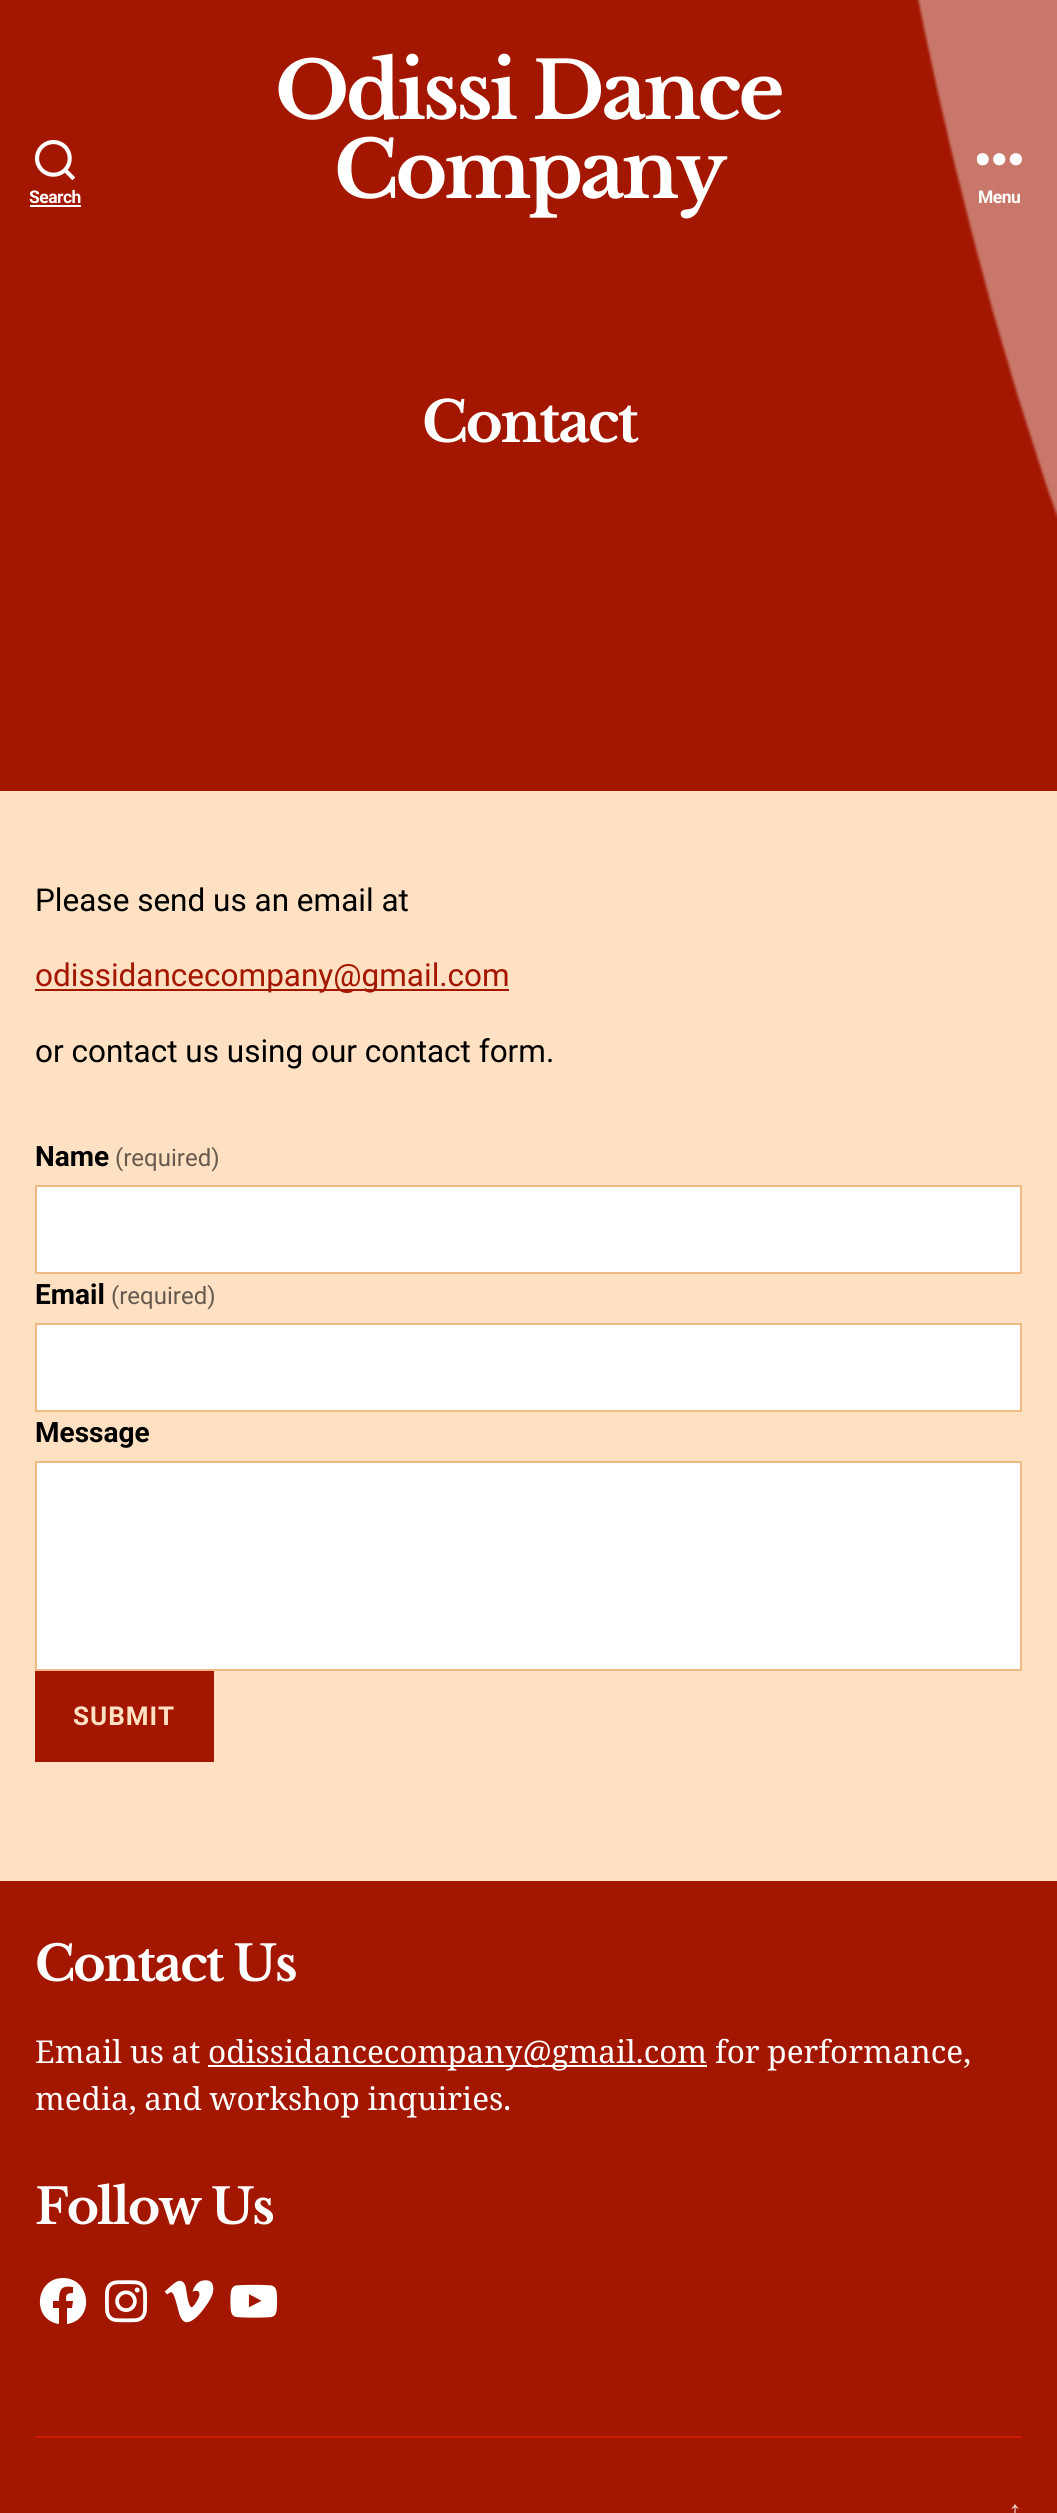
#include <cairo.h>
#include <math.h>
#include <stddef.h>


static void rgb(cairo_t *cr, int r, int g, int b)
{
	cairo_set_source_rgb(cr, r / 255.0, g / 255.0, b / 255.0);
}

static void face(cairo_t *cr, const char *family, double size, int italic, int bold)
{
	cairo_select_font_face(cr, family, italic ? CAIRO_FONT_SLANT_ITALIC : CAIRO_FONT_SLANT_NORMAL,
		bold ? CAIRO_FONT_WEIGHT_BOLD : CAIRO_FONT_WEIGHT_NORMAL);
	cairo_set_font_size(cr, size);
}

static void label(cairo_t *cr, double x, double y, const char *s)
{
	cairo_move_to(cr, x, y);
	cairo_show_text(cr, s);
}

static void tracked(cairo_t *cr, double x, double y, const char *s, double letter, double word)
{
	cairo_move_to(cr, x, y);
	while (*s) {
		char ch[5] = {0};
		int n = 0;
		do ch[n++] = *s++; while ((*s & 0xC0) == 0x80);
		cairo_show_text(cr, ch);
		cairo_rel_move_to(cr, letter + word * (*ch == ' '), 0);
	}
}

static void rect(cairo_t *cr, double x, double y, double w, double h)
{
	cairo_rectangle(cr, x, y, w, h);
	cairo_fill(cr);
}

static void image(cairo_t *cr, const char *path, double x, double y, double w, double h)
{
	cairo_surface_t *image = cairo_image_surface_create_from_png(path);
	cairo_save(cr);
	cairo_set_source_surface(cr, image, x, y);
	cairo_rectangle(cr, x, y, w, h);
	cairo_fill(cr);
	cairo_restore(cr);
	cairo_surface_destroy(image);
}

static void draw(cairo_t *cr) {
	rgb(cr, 254, 224, 195);
	cairo_paint(cr);
	rgb(cr, 163, 22, 0);
	rect(cr, 0, 0, 1057, 791);
	image(cr, "image0.png", 35, 140, 40, 41);
	face(cr, "Roboto", 17.5, 0, 1);
	rgb(cr, 255, 255, 255);
	tracked(cr, 29, 203, "Search", -0.5, 0);
	rect(cr, 30, 205, 51, 2);
	face(cr, "Libre Baskerville", 78.75, 0, 1);
	tracked(cr, 275, 119, "Odissi Dance", -3.25, 0);
	tracked(cr, 334, 198, "Company", -3.25, 0);
	image(cr, "image2.png", 916, 0, 141, 519);
	image(cr, "image1.png", 977, 153, 45, 13);
	face(cr, "Roboto", 17.5, 0, 1);
	tracked(cr, 978, 203, "Menu", -0.5, 0);
	face(cr, "Libre Baskerville", 56, 0, 1);
	tracked(cr, 422, 442, "Contact", -2.25, 0);
	face(cr, "Roboto", 31.5, 0, 0);
	rgb(cr, 0, 0, 0);
	label(cr, 35, 911, "Please send us an email at");
	rgb(cr, 163, 22, 0);
	rect(cr, 35, 989, 474, 2);
	label(cr, 35, 986, "odissidancecompany@gmail.com");
	rgb(cr, 0, 0, 0);
	label(cr, 35, 1062, "or contact us using our contact form.");
	face(cr, "Roboto", 28, 0, 1);
	label(cr, 35, 1166, "Name");
	face(cr, "Roboto", 24, 0, 0);
	rgb(cr, 102, 90, 78);
	label(cr, 115, 1166, "(required)");
	rgb(cr, 255, 255, 255);
	cairo_rectangle(cr, 36, 1186, 985, 87);
	cairo_fill_preserve(cr);
	rgb(cr, 241, 186, 130);
	cairo_stroke(cr);
	face(cr, "Roboto", 28, 0, 1);
	rgb(cr, 0, 0, 0);
	label(cr, 35, 1304, "Email");
	face(cr, "Roboto", 24, 0, 0);
	rgb(cr, 102, 90, 78);
	label(cr, 111, 1304, "(required)");
	rgb(cr, 255, 255, 255);
	cairo_rectangle(cr, 36, 1324, 985, 87);
	cairo_fill_preserve(cr);
	rgb(cr, 241, 186, 130);
	cairo_stroke(cr);
	face(cr, "Roboto", 28, 0, 1);
	rgb(cr, 0, 0, 0);
	label(cr, 35, 1442, "Message");
	rgb(cr, 255, 255, 255);
	cairo_rectangle(cr, 36, 1462, 985, 208);
	cairo_fill_preserve(cr);
	rgb(cr, 241, 186, 130);
	cairo_stroke(cr);
	rgb(cr, 163, 22, 0);
	rect(cr, 35, 1671, 179, 91);
	face(cr, "Roboto", 26, 0, 1);
	rgb(cr, 254, 224, 195);
	tracked(cr, 73, 1725, "SUBMIT", 1, 0);
	rgb(cr, 163, 22, 0);
	rect(cr, 0, 1881, 1057, 632);
	rgb(cr, 204, 27, 0);
	rect(cr, 35, 2436, 987, 2);
	face(cr, "Libre Baskerville", 49, 0, 1);
	rgb(cr, 255, 255, 255);
	tracked(cr, 35, 1981, "Contact Us", -2, 0);
	face(cr, "Noto Serif", 31.5, 0, 0);
	tracked(cr, 35, 2063, "Email us at", 0, -0.5);
	rect(cr, 208, 2065, 499, 2);
	label(cr, 208, 2063, "odissidancecompany@gmail.com");
	tracked(cr, 715, 2063, "for performance,", 0, -0.5);
	tracked(cr, 35, 2110, "media, and workshop inquiries.", 0, -0.5);
	face(cr, "Libre Baskerville", 49, 0, 1);
	tracked(cr, 35, 2224, "Follow Us", -2, 0);
	cairo_new_path(cr);
	cairo_move_to(cr, 63, 2278);
	cairo_curve_to(cr, 35, 2278, 31, 2320, 59, 2324);
	cairo_line_to(cr, 59, 2308);
	cairo_line_to(cr, 53, 2308);
	cairo_line_to(cr, 53, 2301);
	cairo_line_to(cr, 59, 2301);
	cairo_curve_to(cr, 59, 2290, 61, 2285, 73, 2287);
	cairo_line_to(cr, 73, 2293);
	cairo_curve_to(cr, 66, 2293, 66, 2295, 66, 2301);
	cairo_line_to(cr, 73, 2301);
	cairo_line_to(cr, 72, 2308);
	cairo_line_to(cr, 67, 2308);
	cairo_line_to(cr, 67, 2324);
	cairo_curve_to(cr, 95, 2320, 91, 2278, 63, 2278);
	cairo_close_path(cr);
	cairo_fill(cr);
	image(cr, "image3.png", 105, 2280, 42, 43);
	image(cr, "image4.png", 164, 2280, 50, 43);
	image(cr, "image5.png", 230, 2284, 48, 34);
	face(cr, "Liberation Serif", 28, 0, 0);
	rgb(cr, 237, 205, 201);
	tracked(cr, 1008, 2520, "↑", -0.5, 0);
}

int main(void) {
	cairo_surface_t *surface = cairo_image_surface_create(CAIRO_FORMAT_RGB24, 1057, 2513);
	cairo_t *cr = cairo_create(surface);
	cairo_font_options_t *options = cairo_font_options_create();
	cairo_font_options_set_hint_metrics(options, CAIRO_HINT_METRICS_OFF);
	cairo_font_options_set_hint_style(options, CAIRO_HINT_STYLE_NONE);
	cairo_set_font_options(cr, options);
	cairo_set_miter_limit(cr, 4);
	draw(cr);
	cairo_surface_write_to_png(surface, "render.png");
	cairo_font_options_destroy(options);
	cairo_destroy(cr);
	cairo_surface_destroy(surface);
	return 0;
}
